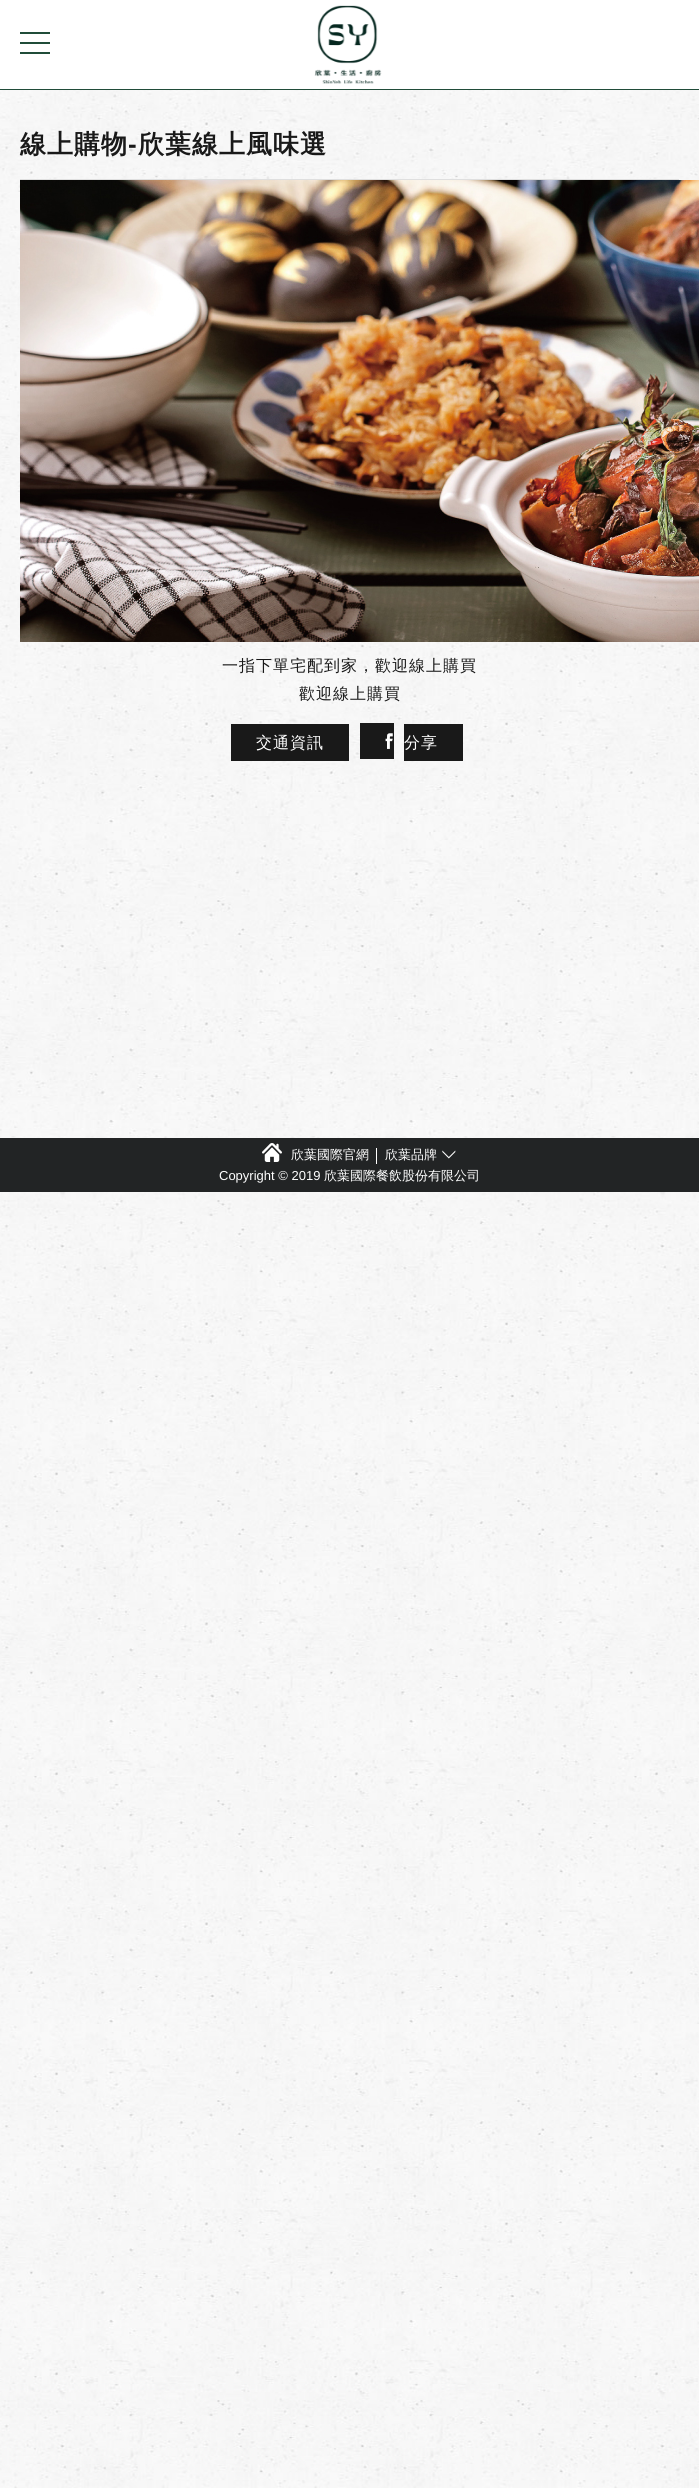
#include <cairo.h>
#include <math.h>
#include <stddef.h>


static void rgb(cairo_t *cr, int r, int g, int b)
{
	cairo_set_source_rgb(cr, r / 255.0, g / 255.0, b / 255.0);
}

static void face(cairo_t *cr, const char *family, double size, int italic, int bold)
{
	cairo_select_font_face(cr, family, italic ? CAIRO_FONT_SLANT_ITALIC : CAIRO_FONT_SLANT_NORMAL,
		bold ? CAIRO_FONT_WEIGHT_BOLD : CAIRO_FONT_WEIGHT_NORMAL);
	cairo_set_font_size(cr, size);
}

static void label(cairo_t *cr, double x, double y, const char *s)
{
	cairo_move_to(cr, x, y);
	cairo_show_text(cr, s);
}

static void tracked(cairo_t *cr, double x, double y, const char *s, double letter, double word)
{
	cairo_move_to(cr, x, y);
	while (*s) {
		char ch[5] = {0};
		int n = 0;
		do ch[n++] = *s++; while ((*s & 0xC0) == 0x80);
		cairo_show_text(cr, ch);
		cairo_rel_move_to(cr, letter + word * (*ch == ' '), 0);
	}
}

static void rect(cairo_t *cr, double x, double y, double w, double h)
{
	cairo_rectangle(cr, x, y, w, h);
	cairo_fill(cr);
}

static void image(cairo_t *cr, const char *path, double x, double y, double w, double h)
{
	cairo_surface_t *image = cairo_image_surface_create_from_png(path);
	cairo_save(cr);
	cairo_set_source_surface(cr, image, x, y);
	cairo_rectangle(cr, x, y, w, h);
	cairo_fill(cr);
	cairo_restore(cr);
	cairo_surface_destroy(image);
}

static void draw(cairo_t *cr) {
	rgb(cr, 255, 255, 255);
	cairo_paint(cr);
	image(cr, "image0.png", 0, 90, 699, 2398);
	rgb(cr, 32, 76, 57);
	rect(cr, 0, 89, 699, 1);
	image(cr, "image1.png", 314, 5, 68, 79);
	rect(cr, 20, 32, 30, 2);
	rect(cr, 20, 52, 30, 2);
	rect(cr, 20, 42, 30, 2);
	rgb(cr, 223, 223, 223);
	rect(cr, 20, 179, 659, 1);
	face(cr, "WenQuanYi Zen Hei", 26, 0, 1);
	rgb(cr, 25, 25, 25);
	tracked(cr, 20, 153, "線上購物", 1, 0);
	face(cr, "Liberation Sans", 26, 0, 1);
	tracked(cr, 128, 153, "-", 1, 0);
	face(cr, "WenQuanYi Zen Hei", 26, 0, 1);
	tracked(cr, 138, 153, "欣葉線上風味選", 1, 0);
	image(cr, "image2.png", 20, 180, 679, 462);
	face(cr, "WenQuanYi Zen Hei Medium", 16, 0, 0);
	tracked(cr, 222, 671, "一指下單宅配到家，歡迎線上購買", 1, 0);
	tracked(cr, 299, 699, "歡迎線上購買", 1, 0);
	rect(cr, 231, 724, 118, 37);
	rgb(cr, 255, 255, 255);
	tracked(cr, 256, 748, "交通資訊", 1, 0);
	rgb(cr, 25, 25, 25);
	rect(cr, 360, 723, 34, 36);
	image(cr, "image3.png", 385, 733, 8, 16);
	rect(cr, 404, 724, 59, 37);
	rgb(cr, 255, 255, 255);
	tracked(cr, 404, 748, "分享", 1, 0);
	rgb(cr, 34, 36, 37);
	rect(cr, 0, 1138, 699, 54);
	image(cr, "image4.png", 262, 1143, 20, 19);
	face(cr, "WenQuanYi Zen Hei Medium", 13, 0, 0);
	rgb(cr, 255, 255, 255);
	label(cr, 291, 1159, "欣葉國際官網");
	rect(cr, 376, 1148, 1, 16);
	label(cr, 385, 1159, "欣葉品牌");
	image(cr, "image5.png", 442, 1150, 14, 9);
	face(cr, "Liberation Sans", 13, 0, 0);
	label(cr, 219, 1180, "Copyright © 2019");
	face(cr, "WenQuanYi Zen Hei Medium", 13, 0, 0);
	label(cr, 324, 1180, "欣葉國際餐飲股份有限公司");
}

int main(void) {
	cairo_surface_t *surface = cairo_image_surface_create(CAIRO_FORMAT_RGB24, 699, 2488);
	cairo_t *cr = cairo_create(surface);
	cairo_font_options_t *options = cairo_font_options_create();
	cairo_font_options_set_hint_metrics(options, CAIRO_HINT_METRICS_OFF);
	cairo_font_options_set_hint_style(options, CAIRO_HINT_STYLE_NONE);
	cairo_set_font_options(cr, options);
	cairo_set_miter_limit(cr, 4);
	draw(cr);
	cairo_surface_write_to_png(surface, "render.png");
	cairo_font_options_destroy(options);
	cairo_destroy(cr);
	cairo_surface_destroy(surface);
	return 0;
}
